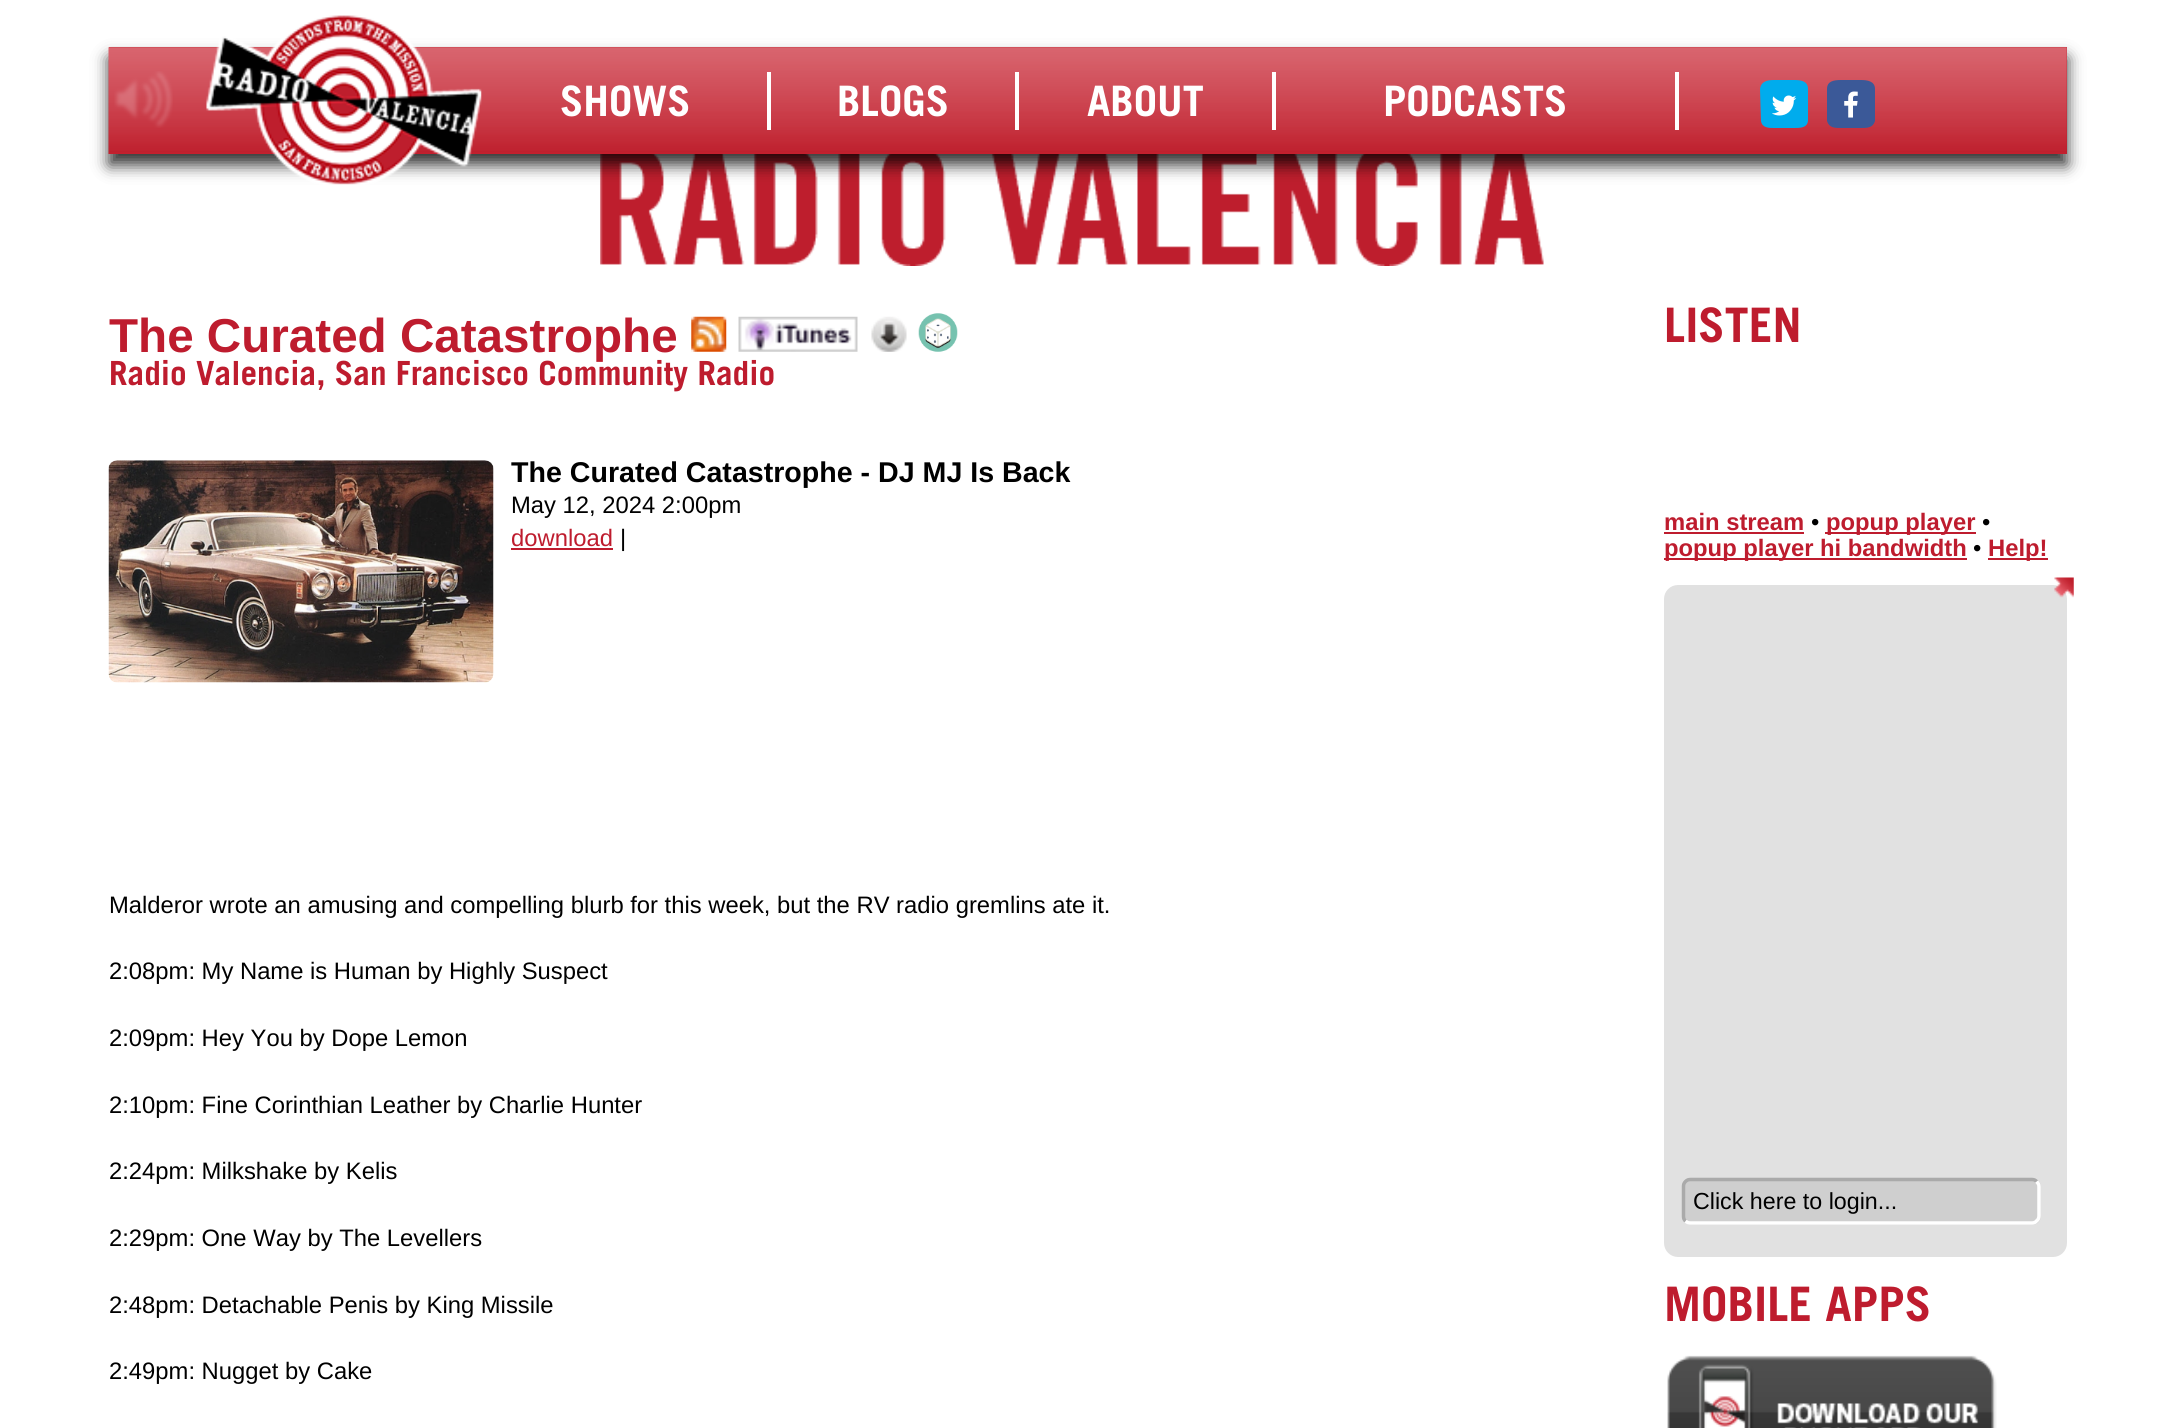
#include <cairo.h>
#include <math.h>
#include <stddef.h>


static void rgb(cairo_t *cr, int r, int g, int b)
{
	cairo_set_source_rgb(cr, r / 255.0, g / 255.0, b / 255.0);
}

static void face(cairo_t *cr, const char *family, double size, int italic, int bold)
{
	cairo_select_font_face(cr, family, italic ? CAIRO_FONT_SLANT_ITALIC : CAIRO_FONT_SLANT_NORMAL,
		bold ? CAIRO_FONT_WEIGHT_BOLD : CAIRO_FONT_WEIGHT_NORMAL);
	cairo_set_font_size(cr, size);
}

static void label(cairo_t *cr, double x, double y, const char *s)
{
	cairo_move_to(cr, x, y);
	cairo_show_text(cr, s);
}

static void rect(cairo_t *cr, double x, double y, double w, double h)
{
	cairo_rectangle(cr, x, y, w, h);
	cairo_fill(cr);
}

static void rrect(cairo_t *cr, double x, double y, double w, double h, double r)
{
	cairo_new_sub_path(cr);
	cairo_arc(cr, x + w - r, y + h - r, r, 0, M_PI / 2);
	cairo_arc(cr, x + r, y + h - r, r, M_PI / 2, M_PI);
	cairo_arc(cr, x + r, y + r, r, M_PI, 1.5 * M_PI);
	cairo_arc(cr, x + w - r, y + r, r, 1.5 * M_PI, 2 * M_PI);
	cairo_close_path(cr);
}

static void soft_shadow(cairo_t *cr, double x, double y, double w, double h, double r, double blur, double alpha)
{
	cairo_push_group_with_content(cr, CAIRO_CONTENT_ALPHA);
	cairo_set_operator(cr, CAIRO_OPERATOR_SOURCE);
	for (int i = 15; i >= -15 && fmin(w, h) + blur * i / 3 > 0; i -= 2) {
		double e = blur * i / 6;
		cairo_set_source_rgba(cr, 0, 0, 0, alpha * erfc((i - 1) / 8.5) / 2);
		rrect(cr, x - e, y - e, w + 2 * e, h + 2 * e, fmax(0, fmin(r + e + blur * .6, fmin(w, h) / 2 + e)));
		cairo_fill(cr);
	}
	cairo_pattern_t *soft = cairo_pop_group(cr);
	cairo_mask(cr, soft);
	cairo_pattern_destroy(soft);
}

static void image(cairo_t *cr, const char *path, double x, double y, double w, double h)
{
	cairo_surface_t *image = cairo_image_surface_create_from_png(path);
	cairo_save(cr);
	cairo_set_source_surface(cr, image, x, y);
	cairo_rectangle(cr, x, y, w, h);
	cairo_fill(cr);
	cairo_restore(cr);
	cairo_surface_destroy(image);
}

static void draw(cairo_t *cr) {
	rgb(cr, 255, 255, 255);
	cairo_paint(cr);
	image(cr, "image0.png", 600, 154, 944, 112);
	rgb(cr, 0, 0, 0);
	soft_shadow(cr, 109, 58, 1958, 107, 0, 8, 0.8);
	rgb(cr, 190, 28, 46);
	rect(cr, 109, 47, 1958, 107);
	image(cr, "image2.png", 108, 47, 1959, 107);
	image(cr, "image1.png", 114, 71, 59, 57);
	image(cr, "image3.png", 206, 15, 276, 170);
	rgb(cr, 255, 255, 255);
	rect(cr, 767, 72, 4, 58);
	face(cr, "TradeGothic", 42, 0, 1);
	label(cr, 560, 116, "SHOWS");
	rect(cr, 1015, 72, 4, 58);
	label(cr, 837, 116, "BLOGS");
	rect(cr, 1272, 72, 4, 58);
	label(cr, 1087, 116, "ABOUT");
	rect(cr, 1675, 72, 4, 58);
	label(cr, 1383, 116, "PODCASTS");
	rgb(cr, 0, 172, 237);
	cairo_new_path(cr);
	cairo_move_to(cr, 1808, 89);
	cairo_line_to(cr, 1808, 121);
	cairo_curve_to(cr, 1807, 128, 1800, 128, 1794, 128);
	cairo_line_to(cr, 1774, 128);
	cairo_curve_to(cr, 1769, 128, 1762, 128, 1761, 121);
	cairo_line_to(cr, 1760, 89);
	cairo_curve_to(cr, 1761, 81, 1768, 80, 1774, 80);
	cairo_line_to(cr, 1794, 80);
	cairo_curve_to(cr, 1801, 80, 1808, 81, 1808, 89);
	cairo_close_path(cr);
	cairo_fill(cr);
	image(cr, "image4.png", 1772, 95, 25, 21);
	rgb(cr, 59, 89, 152);
	cairo_new_path(cr);
	cairo_move_to(cr, 1875, 89);
	cairo_line_to(cr, 1875, 121);
	cairo_curve_to(cr, 1873, 128, 1867, 128, 1861, 128);
	cairo_line_to(cr, 1841, 128);
	cairo_curve_to(cr, 1835, 128, 1829, 128, 1827, 121);
	cairo_line_to(cr, 1827, 89);
	cairo_curve_to(cr, 1827, 81, 1834, 80, 1841, 80);
	cairo_line_to(cr, 1861, 80);
	cairo_curve_to(cr, 1867, 80, 1875, 81, 1875, 89);
	cairo_close_path(cr);
	cairo_fill(cr);
	image(cr, "image5.png", 1844, 91, 14, 27);
	face(cr, "Liberation Sans", 47.6, 0, 1);
	rgb(cr, 190, 28, 46);
	label(cr, 109, 352, "The Curated Catastrophe");
	image(cr, "image6.png", 691, 316, 36, 36);
	image(cr, "image7.png", 738, 316, 120, 36);
	image(cr, "image8.png", 871, 316, 36, 36);
	image(cr, "image9.png", 918, 313, 40, 39);
	face(cr, "TradeGothic", 33.3, 0, 1);
	label(cr, 109, 385, "Radio Valencia, San Francisco Community Radio");
	image(cr, "image10.png", 108, 460, 386, 223);
	face(cr, "Liberation Sans", 28.6, 0, 1);
	rgb(cr, 0, 0, 0);
	label(cr, 511, 482, "The Curated Catastrophe - DJ MJ Is Back");
	face(cr, "Liberation Sans", 23.8, 0, 0);
	label(cr, 511, 513, "May 12, 2024 2:00pm");
	rgb(cr, 190, 28, 46);
	label(cr, 511, 546, "download");
	rect(cr, 511, 548, 102, 2);
	rgb(cr, 0, 0, 0);
	label(cr, 620, 546, "|");
	label(cr, 109, 913, "Malderor wrote an amusing and compelling blurb for this week, but the RV radio gremlins ate it.");
	label(cr, 109, 979, "2:08pm: My Name is Human by Highly Suspect");
	label(cr, 109, 1046, "2:09pm: Hey You by Dope Lemon");
	label(cr, 109, 1113, "2:10pm: Fine Corinthian Leather by Charlie Hunter");
	label(cr, 109, 1179, "2:24pm: Milkshake by Kelis");
	label(cr, 109, 1246, "2:29pm: One Way by The Levellers");
	label(cr, 109, 1313, "2:48pm: Detachable Penis by King Missile");
	label(cr, 109, 1379, "2:49pm: Nugget by Cake");
	face(cr, "TradeGothic", 47.6, 0, 1);
	rgb(cr, 190, 28, 46);
	label(cr, 1664, 342, "LISTEN");
	face(cr, "Liberation Sans", 23.8, 0, 1);
	label(cr, 1664, 530, "main stream");
	rect(cr, 1664, 532, 140, 2);
	face(cr, "Liberation Sans", 23.8, 0, 0);
	rgb(cr, 0, 0, 0);
	label(cr, 1811, 530, "•");
	rgb(cr, 190, 28, 46);
	rect(cr, 1825, 532, 151, 2);
	face(cr, "Liberation Sans", 23.8, 0, 1);
	label(cr, 1826, 530, "popup player");
	face(cr, "Liberation Sans", 23.8, 0, 0);
	rgb(cr, 0, 0, 0);
	label(cr, 1982, 530, "•");
	rgb(cr, 190, 28, 46);
	rect(cr, 1664, 558, 303, 2);
	face(cr, "Liberation Sans", 23.8, 0, 1);
	label(cr, 1664, 556, "popup player hi bandwidth");
	face(cr, "Liberation Sans", 23.8, 0, 0);
	rgb(cr, 0, 0, 0);
	label(cr, 1973, 556, "•");
	rgb(cr, 190, 28, 46);
	rect(cr, 1988, 558, 60, 2);
	face(cr, "Liberation Sans", 23.8, 0, 1);
	label(cr, 1988, 556, "Help!");
	rgb(cr, 225, 225, 225);
	rrect(cr, 1664, 585, 403, 672, 14);
	cairo_fill(cr);
	image(cr, "image11.png", 2054, 577, 20, 21);
	rgb(cr, 207, 207, 207);
	rrect(cr, 1682, 1178, 359, 47, 9);
	cairo_fill(cr);
	cairo_new_path(cr);
	cairo_move_to(cr, 2036.5, 1181.5);
	cairo_curve_to(cr, 2038, 1183, 2039, 1184.5, 2039, 1186.5);
	cairo_line_to(cr, 2039, 1216);
	cairo_curve_to(cr, 2039, 1218, 2038, 1220, 2036.5, 1221);
	cairo_curve_to(cr, 2035.5, 1222.5, 2033.5, 1223, 2032, 1223);
	cairo_line_to(cr, 1690.5, 1223);
	cairo_curve_to(cr, 1688.5, 1223, 1687, 1222.5, 1685.5, 1221);
	rgb(cr, 255, 255, 255);
	cairo_set_line_width(cr, 3.5);
	cairo_stroke(cr);
	cairo_new_path(cr);
	cairo_move_to(cr, 1685.5, 1221);
	cairo_curve_to(cr, 1684, 1220, 1683.5, 1218, 1683.5, 1216);
	cairo_line_to(cr, 1683.5, 1186.5);
	cairo_curve_to(cr, 1683.5, 1184.5, 1684, 1183, 1685.5, 1181.5);
	cairo_curve_to(cr, 1687, 1180, 1688.5, 1179.5, 1690.5, 1179.5);
	cairo_line_to(cr, 2032, 1179.5);
	cairo_curve_to(cr, 2033.5, 1179.5, 2035.5, 1180, 2036.5, 1181.5);
	rgb(cr, 170, 170, 170);
	cairo_stroke(cr);
	face(cr, "Liberation Sans", 23.25, 0, 0);
	rgb(cr, 0, 0, 0);
	label(cr, 1693, 1209, "Click here to login...");
	face(cr, "TradeGothic", 47.6, 0, 1);
	rgb(cr, 190, 28, 46);
	label(cr, 1664, 1321, "MOBILE APPS");
	image(cr, "image12.png", 1667, 1355, 330, 73);
}

int main(void) {
	cairo_surface_t *surface = cairo_image_surface_create(CAIRO_FORMAT_RGB24, 2175, 1428);
	cairo_t *cr = cairo_create(surface);
	cairo_font_options_t *options = cairo_font_options_create();
	cairo_font_options_set_hint_metrics(options, CAIRO_HINT_METRICS_OFF);
	cairo_font_options_set_hint_style(options, CAIRO_HINT_STYLE_NONE);
	cairo_set_font_options(cr, options);
	cairo_set_miter_limit(cr, 4);
	draw(cr);
	cairo_surface_write_to_png(surface, "render.png");
	cairo_font_options_destroy(options);
	cairo_destroy(cr);
	cairo_surface_destroy(surface);
	return 0;
}
